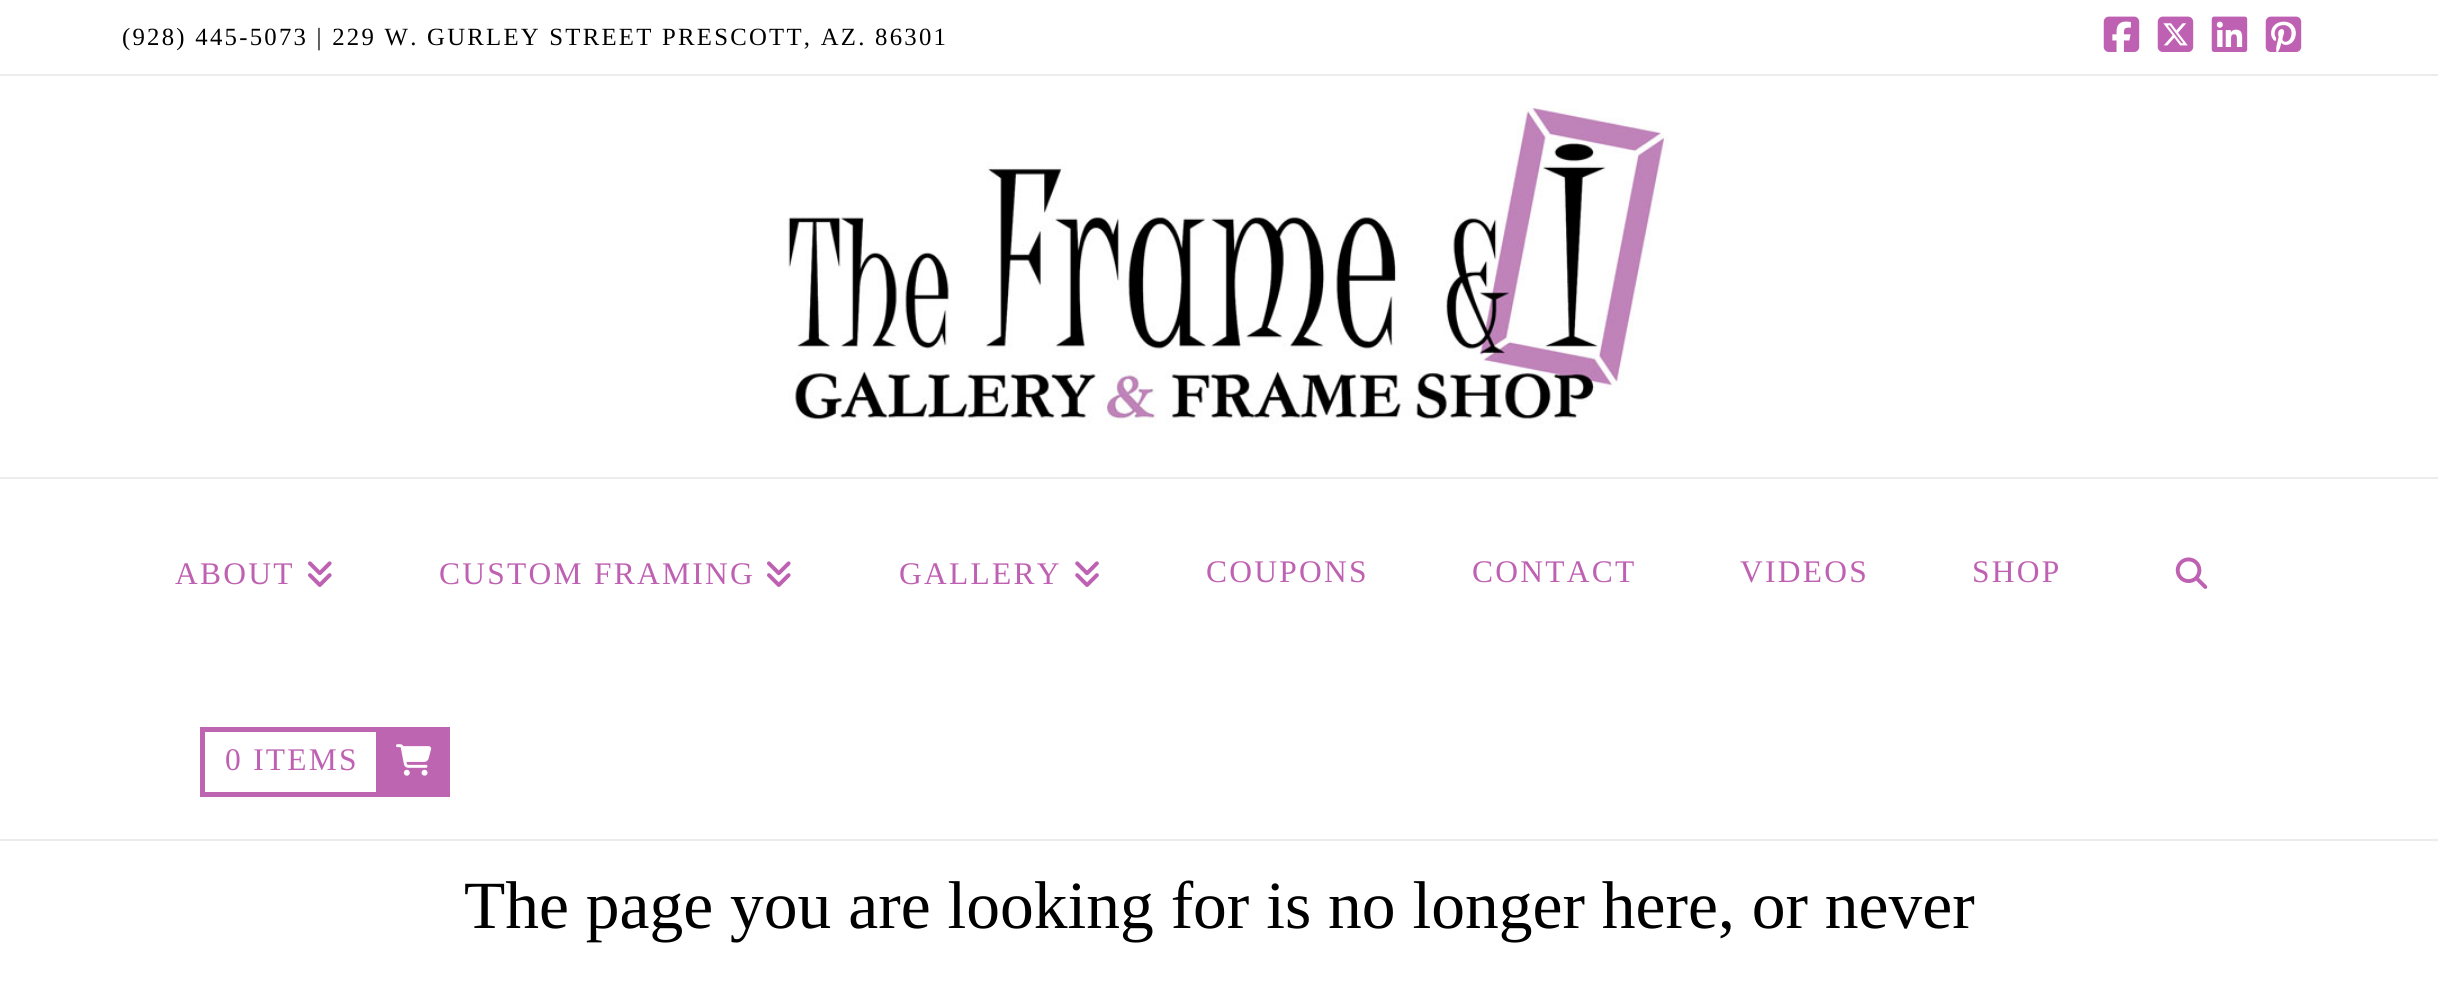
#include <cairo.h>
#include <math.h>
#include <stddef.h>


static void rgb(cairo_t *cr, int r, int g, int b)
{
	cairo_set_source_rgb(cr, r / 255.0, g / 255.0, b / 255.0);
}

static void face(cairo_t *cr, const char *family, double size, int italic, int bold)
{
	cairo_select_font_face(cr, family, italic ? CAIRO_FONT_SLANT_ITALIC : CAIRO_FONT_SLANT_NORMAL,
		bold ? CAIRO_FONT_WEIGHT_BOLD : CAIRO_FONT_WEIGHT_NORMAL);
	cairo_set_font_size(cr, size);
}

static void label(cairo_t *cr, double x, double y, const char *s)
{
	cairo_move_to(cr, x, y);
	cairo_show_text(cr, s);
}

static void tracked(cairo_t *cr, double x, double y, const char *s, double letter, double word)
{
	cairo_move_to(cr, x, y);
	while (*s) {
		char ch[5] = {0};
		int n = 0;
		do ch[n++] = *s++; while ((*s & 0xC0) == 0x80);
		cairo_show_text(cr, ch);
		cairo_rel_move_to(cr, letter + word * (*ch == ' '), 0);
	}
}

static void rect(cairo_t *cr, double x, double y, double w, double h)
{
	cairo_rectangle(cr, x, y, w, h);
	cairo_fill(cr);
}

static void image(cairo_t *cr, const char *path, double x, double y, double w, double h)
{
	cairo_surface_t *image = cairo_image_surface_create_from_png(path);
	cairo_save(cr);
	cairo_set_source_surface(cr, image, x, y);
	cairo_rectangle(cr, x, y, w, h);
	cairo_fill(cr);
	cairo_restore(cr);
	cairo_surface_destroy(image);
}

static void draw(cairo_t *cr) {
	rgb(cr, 255, 255, 255);
	cairo_paint(cr);
	rgb(cr, 236, 236, 236);
	rect(cr, 0, 74, 2438, 2);
	face(cr, "Liberation Serif", 24.75, 0, 0);
	rgb(cr, 0, 0, 0);
	tracked(cr, 122, 45, "(928) 445-5073 | 229 W. GURLEY STREET PRESCOTT, AZ. 86301", 2.25, 0);
	image(cr, "image0.png", 2103, 16, 37, 36);
	image(cr, "image1.png", 2157, 16, 37, 36);
	image(cr, "image2.png", 2211, 16, 37, 36);
	image(cr, "image3.png", 2265, 16, 37, 36);
	rgb(cr, 236, 236, 236);
	rect(cr, 0, 477, 2438, 2);
	image(cr, "image4.png", 788, 108, 881, 316);
	rect(cr, 0, 839, 2438, 2);
	face(cr, "Liberation Serif", 31.5, 0, 0);
	rgb(cr, 191, 97, 178);
	tracked(cr, 175, 584, "ABOUT", 2.25, 0);
	image(cr, "image5.png", 308, 561, 24, 26);
	tracked(cr, 439, 584, "CUSTOM FRAMING", 2.25, 0);
	image(cr, "image5.png", 767, 561, 24, 26);
	tracked(cr, 899, 584, "GALLERY", 2.25, 0);
	image(cr, "image6.png", 1075, 561, 24, 26);
	tracked(cr, 1206, 582, "COUPONS", 2.25, 0);
	tracked(cr, 1472, 582, "CONTACT", 2.25, 0);
	tracked(cr, 1740, 582, "VIDEOS", 2.25, 0);
	tracked(cr, 1972, 582, "SHOP", 2.25, 0);
	image(cr, "image7.png", 2175, 557, 33, 32);
	rgb(cr, 190, 101, 178);
	rect(cr, 200, 727, 250, 5);
	rect(cr, 200, 792, 250, 5);
	rect(cr, 200, 727, 5, 70);
	rgb(cr, 191, 97, 178);
	tracked(cr, 225, 770, "0 ITEMS", 2.25, 0);
	rgb(cr, 190, 101, 178);
	rect(cr, 376, 732, 74, 60);
	image(cr, "image8.png", 396, 744, 36, 32);
	face(cr, "Liberation Serif", 67.5, 0, 0);
	rgb(cr, 0, 0, 0);
	label(cr, 464, 928, "The page you are looking for is no longer here, or never");
}

int main(void) {
	cairo_surface_t *surface = cairo_image_surface_create(CAIRO_FORMAT_RGB24, 2438, 1002);
	cairo_t *cr = cairo_create(surface);
	cairo_font_options_t *options = cairo_font_options_create();
	cairo_font_options_set_hint_metrics(options, CAIRO_HINT_METRICS_OFF);
	cairo_font_options_set_hint_style(options, CAIRO_HINT_STYLE_NONE);
	cairo_set_font_options(cr, options);
	cairo_set_miter_limit(cr, 4);
	draw(cr);
	cairo_surface_write_to_png(surface, "render.png");
	cairo_font_options_destroy(options);
	cairo_destroy(cr);
	cairo_surface_destroy(surface);
	return 0;
}
